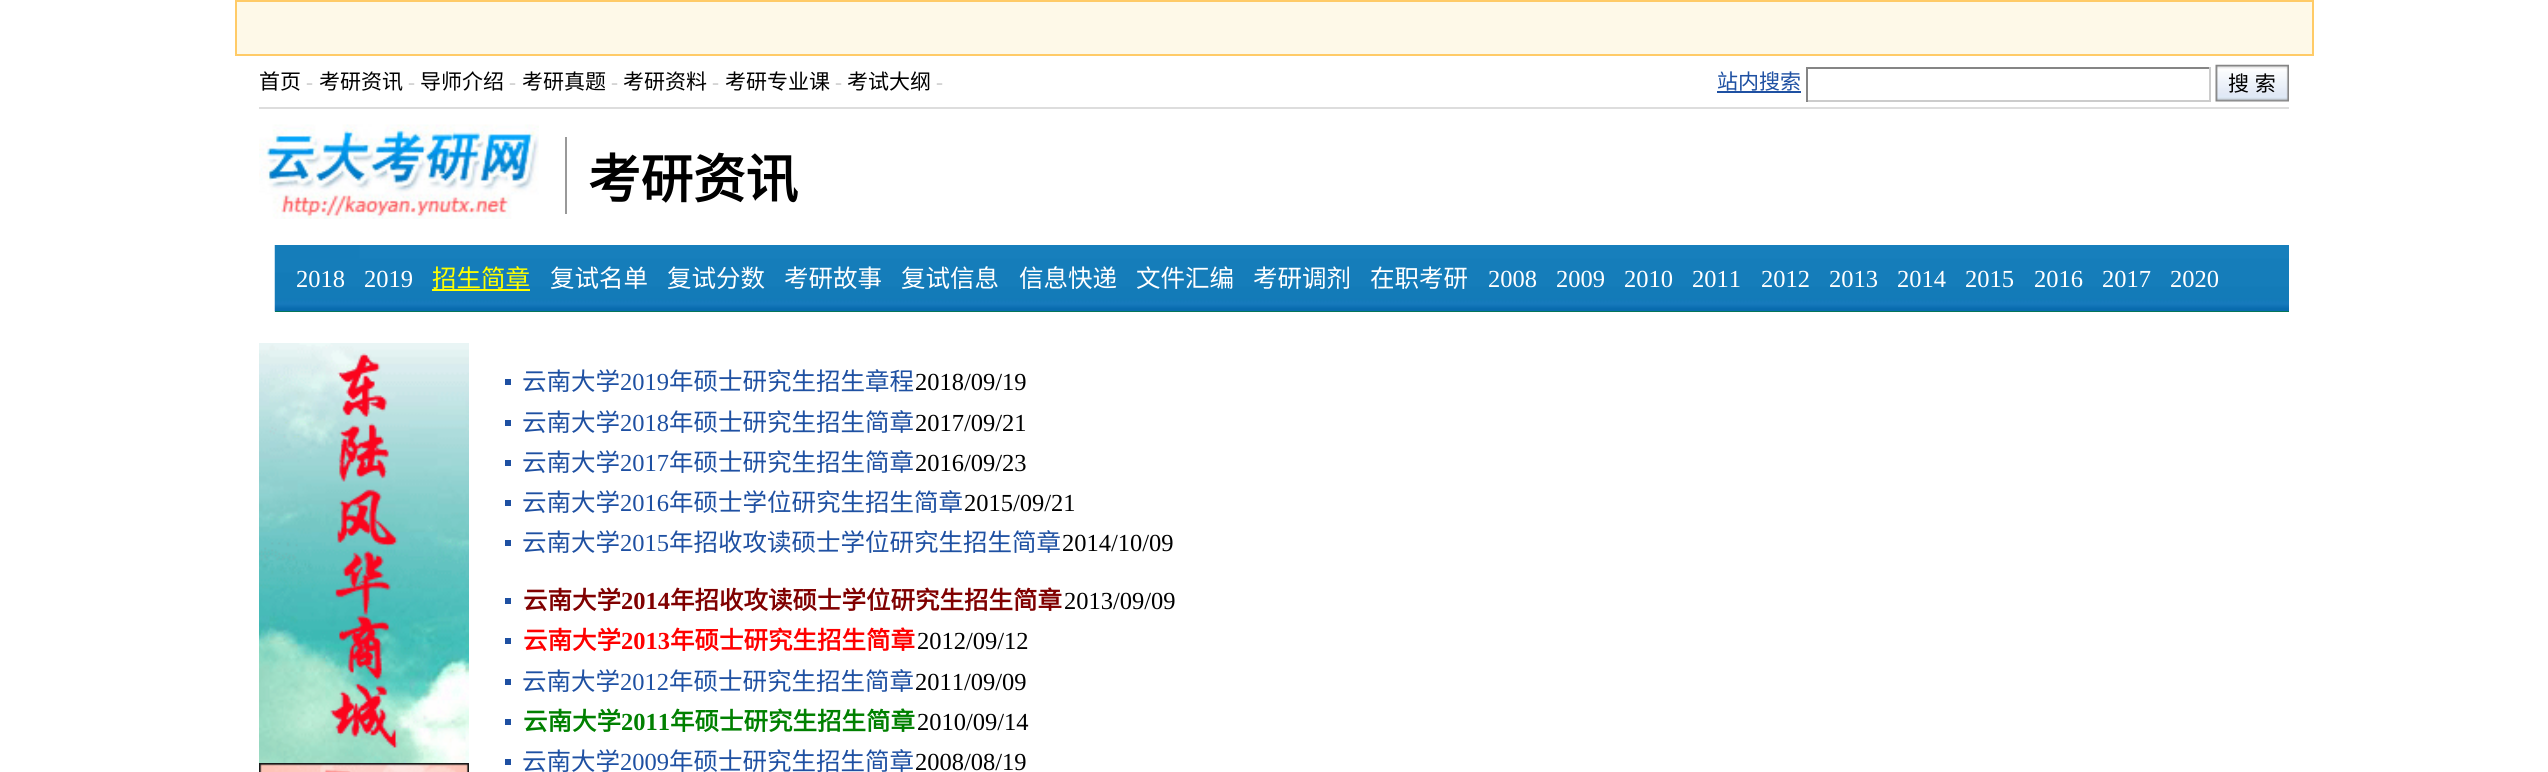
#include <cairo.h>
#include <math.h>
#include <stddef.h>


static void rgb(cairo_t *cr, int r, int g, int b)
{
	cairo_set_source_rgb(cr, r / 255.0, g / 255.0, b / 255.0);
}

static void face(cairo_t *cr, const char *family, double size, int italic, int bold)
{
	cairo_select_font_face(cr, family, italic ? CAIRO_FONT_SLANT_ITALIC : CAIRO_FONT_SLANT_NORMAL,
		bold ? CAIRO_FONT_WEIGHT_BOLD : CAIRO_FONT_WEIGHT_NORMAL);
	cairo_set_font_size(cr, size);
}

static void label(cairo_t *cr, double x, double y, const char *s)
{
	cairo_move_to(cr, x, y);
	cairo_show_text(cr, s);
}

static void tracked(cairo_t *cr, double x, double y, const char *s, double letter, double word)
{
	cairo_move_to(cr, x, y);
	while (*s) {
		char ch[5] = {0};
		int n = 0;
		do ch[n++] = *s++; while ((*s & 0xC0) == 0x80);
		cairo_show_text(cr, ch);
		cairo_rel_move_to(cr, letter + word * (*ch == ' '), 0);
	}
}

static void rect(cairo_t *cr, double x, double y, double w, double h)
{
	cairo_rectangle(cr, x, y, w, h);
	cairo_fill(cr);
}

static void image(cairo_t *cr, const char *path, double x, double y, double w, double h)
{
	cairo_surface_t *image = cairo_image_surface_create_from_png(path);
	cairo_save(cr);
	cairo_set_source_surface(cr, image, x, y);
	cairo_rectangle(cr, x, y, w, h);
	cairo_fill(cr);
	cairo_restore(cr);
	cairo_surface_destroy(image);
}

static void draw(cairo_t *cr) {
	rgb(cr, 255, 255, 255);
	cairo_paint(cr);
	rgb(cr, 254, 249, 232);
	cairo_rectangle(cr, 236, 1, 2077, 54);
	cairo_fill_preserve(cr);
	rgb(cr, 255, 203, 103);
	cairo_stroke(cr);
	rgb(cr, 221, 221, 221);
	rect(cr, 259, 107, 2030, 2);
	face(cr, "Noto Sans CJK SC", 21, 0, 0);
	rgb(cr, 0, 0, 0);
	label(cr, 259, 89, "首页");
	face(cr, "Liberation Serif", 21, 0, 0);
	rgb(cr, 204, 204, 204);
	label(cr, 306, 89, "-");
	face(cr, "Noto Sans CJK SC", 21, 0, 0);
	rgb(cr, 0, 0, 0);
	label(cr, 319, 89, "考研资讯");
	face(cr, "Liberation Serif", 21, 0, 0);
	rgb(cr, 204, 204, 204);
	label(cr, 408, 89, "-");
	face(cr, "Noto Sans CJK SC", 21, 0, 0);
	rgb(cr, 0, 0, 0);
	label(cr, 420, 89, "导师介绍");
	face(cr, "Liberation Serif", 21, 0, 0);
	rgb(cr, 204, 204, 204);
	label(cr, 509, 89, "-");
	face(cr, "Noto Sans CJK SC", 21, 0, 0);
	rgb(cr, 0, 0, 0);
	label(cr, 522, 89, "考研真题");
	face(cr, "Liberation Serif", 21, 0, 0);
	rgb(cr, 204, 204, 204);
	label(cr, 611, 89, "-");
	face(cr, "Noto Sans CJK SC", 21, 0, 0);
	rgb(cr, 0, 0, 0);
	label(cr, 623, 89, "考研资料");
	face(cr, "Liberation Serif", 21, 0, 0);
	rgb(cr, 204, 204, 204);
	label(cr, 712, 89, "-");
	face(cr, "Noto Sans CJK SC", 21, 0, 0);
	rgb(cr, 0, 0, 0);
	label(cr, 725, 89, "考研专业课");
	face(cr, "Liberation Serif", 21, 0, 0);
	rgb(cr, 204, 204, 204);
	label(cr, 835, 89, "-");
	face(cr, "Noto Sans CJK SC", 21, 0, 0);
	rgb(cr, 0, 0, 0);
	label(cr, 847, 89, "考试大纲");
	face(cr, "Liberation Serif", 21, 0, 0);
	rgb(cr, 204, 204, 204);
	label(cr, 936, 89, "-");
	face(cr, "Noto Sans CJK SC", 21, 0, 0);
	rgb(cr, 30, 80, 162);
	label(cr, 1717, 89, "站内搜索");
	rect(cr, 1717, 91, 84, 2);
	rgb(cr, 133, 133, 133);
	rect(cr, 1806, 67, 404, 2);
	rgb(cr, 204, 204, 204);
	rect(cr, 2209, 67, 2, 35);
	rect(cr, 1806, 100, 404, 2);
	rgb(cr, 133, 133, 133);
	rect(cr, 1806, 67, 2, 35);
	image(cr, "image0.png", 2215, 64, 74, 38);
	rgb(cr, 0, 0, 0);
	tracked(cr, 2228, 91, "搜 索", 0, 1);
	image(cr, "image1.png", 259, 124, 280, 95);
	rgb(cr, 153, 153, 153);
	rect(cr, 565, 137, 2, 77);
	face(cr, "Noto Sans CJK SC", 52.5, 0, 1);
	rgb(cr, 0, 0, 0);
	label(cr, 588, 198, "考研资讯");
	rgb(cr, 0, 128, 0);
	rect(cr, 275, 311, 2014, 1);
	image(cr, "image2.png", 274, 245, 2015, 67);
	face(cr, "Liberation Serif", 24.5, 0, 0);
	rgb(cr, 255, 255, 255);
	label(cr, 296, 287, "2018");
	label(cr, 364, 287, "2019");
	face(cr, "Noto Sans CJK SC", 24.5, 0, 0);
	rgb(cr, 255, 255, 0);
	label(cr, 432, 287, "招生简章");
	rect(cr, 432, 289, 98, 2);
	rgb(cr, 255, 255, 255);
	label(cr, 550, 287, "复试名单");
	label(cr, 667, 287, "复试分数");
	label(cr, 784, 287, "考研故事");
	label(cr, 901, 287, "复试信息");
	label(cr, 1019, 287, "信息快递");
	label(cr, 1136, 287, "文件汇编");
	label(cr, 1253, 287, "考研调剂");
	label(cr, 1370, 287, "在职考研");
	face(cr, "Liberation Serif", 24.5, 0, 0);
	label(cr, 1488, 287, "2008");
	label(cr, 1556, 287, "2009");
	label(cr, 1624, 287, "2010");
	label(cr, 1692, 287, "2011");
	label(cr, 1761, 287, "2012");
	label(cr, 1829, 287, "2013");
	label(cr, 1897, 287, "2014");
	label(cr, 1965, 287, "2015");
	label(cr, 2034, 287, "2016");
	label(cr, 2102, 287, "2017");
	label(cr, 2170, 287, "2020");
	image(cr, "image3.png", 259, 343, 210, 420);
	image(cr, "image4.png", 259, 763, 210, 9);
	rgb(cr, 30, 80, 162);
	rect(cr, 505, 379, 6, 6);
	face(cr, "Noto Sans CJK SC", 24.5, 0, 0);
	label(cr, 522, 390, "云南大学");
	face(cr, "Liberation Serif", 24.5, 0, 0);
	label(cr, 620, 390, "2019");
	face(cr, "Noto Sans CJK SC", 24.5, 0, 0);
	label(cr, 669, 390, "年硕士研究生招生章程");
	face(cr, "Liberation Serif", 24.5, 0, 0);
	rgb(cr, 0, 0, 0);
	label(cr, 915, 390, "2018/09/19");
	rgb(cr, 30, 80, 162);
	rect(cr, 505, 420, 6, 6);
	face(cr, "Noto Sans CJK SC", 24.5, 0, 0);
	label(cr, 522, 431, "云南大学");
	face(cr, "Liberation Serif", 24.5, 0, 0);
	label(cr, 620, 431, "2018");
	face(cr, "Noto Sans CJK SC", 24.5, 0, 0);
	label(cr, 669, 431, "年硕士研究生招生简章");
	face(cr, "Liberation Serif", 24.5, 0, 0);
	rgb(cr, 0, 0, 0);
	label(cr, 915, 431, "2017/09/21");
	rgb(cr, 30, 80, 162);
	rect(cr, 505, 460, 6, 6);
	face(cr, "Noto Sans CJK SC", 24.5, 0, 0);
	label(cr, 522, 471, "云南大学");
	face(cr, "Liberation Serif", 24.5, 0, 0);
	label(cr, 620, 471, "2017");
	face(cr, "Noto Sans CJK SC", 24.5, 0, 0);
	label(cr, 669, 471, "年硕士研究生招生简章");
	face(cr, "Liberation Serif", 24.5, 0, 0);
	rgb(cr, 0, 0, 0);
	label(cr, 915, 471, "2016/09/23");
	rgb(cr, 30, 80, 162);
	rect(cr, 505, 500, 6, 6);
	face(cr, "Noto Sans CJK SC", 24.5, 0, 0);
	label(cr, 522, 511, "云南大学");
	face(cr, "Liberation Serif", 24.5, 0, 0);
	label(cr, 620, 511, "2016");
	face(cr, "Noto Sans CJK SC", 24.5, 0, 0);
	label(cr, 669, 511, "年硕士学位研究生招生简章");
	face(cr, "Liberation Serif", 24.5, 0, 0);
	rgb(cr, 0, 0, 0);
	label(cr, 964, 511, "2015/09/21");
	rgb(cr, 30, 80, 162);
	rect(cr, 505, 540, 6, 6);
	face(cr, "Noto Sans CJK SC", 24.5, 0, 0);
	label(cr, 522, 551, "云南大学");
	face(cr, "Liberation Serif", 24.5, 0, 0);
	label(cr, 620, 551, "2015");
	face(cr, "Noto Sans CJK SC", 24.5, 0, 0);
	label(cr, 669, 551, "年招收攻读硕士学位研究生招生简章");
	face(cr, "Liberation Serif", 24.5, 0, 0);
	rgb(cr, 0, 0, 0);
	label(cr, 1062, 551, "2014/10/09");
	rgb(cr, 30, 80, 162);
	rect(cr, 505, 598, 6, 6);
	face(cr, "Noto Sans CJK SC", 24.5, 0, 1);
	rgb(cr, 128, 0, 0);
	label(cr, 523, 609, "云南大学");
	face(cr, "Liberation Serif", 24.5, 0, 1);
	label(cr, 621, 609, "2014");
	face(cr, "Noto Sans CJK SC", 24.5, 0, 1);
	label(cr, 670, 609, "年招收攻读硕士学位研究生招生简章");
	face(cr, "Liberation Serif", 24.5, 0, 0);
	rgb(cr, 0, 0, 0);
	label(cr, 1064, 609, "2013/09/09");
	rgb(cr, 30, 80, 162);
	rect(cr, 505, 638, 6, 6);
	face(cr, "Noto Sans CJK SC", 24.5, 0, 1);
	rgb(cr, 255, 0, 0);
	label(cr, 523, 649, "云南大学");
	face(cr, "Liberation Serif", 24.5, 0, 1);
	label(cr, 621, 649, "2013");
	face(cr, "Noto Sans CJK SC", 24.5, 0, 1);
	label(cr, 670, 649, "年硕士研究生招生简章");
	face(cr, "Liberation Serif", 24.5, 0, 0);
	rgb(cr, 0, 0, 0);
	label(cr, 917, 649, "2012/09/12");
	rgb(cr, 30, 80, 162);
	rect(cr, 505, 679, 6, 6);
	face(cr, "Noto Sans CJK SC", 24.5, 0, 0);
	label(cr, 522, 690, "云南大学");
	face(cr, "Liberation Serif", 24.5, 0, 0);
	label(cr, 620, 690, "2012");
	face(cr, "Noto Sans CJK SC", 24.5, 0, 0);
	label(cr, 669, 690, "年硕士研究生招生简章");
	face(cr, "Liberation Serif", 24.5, 0, 0);
	rgb(cr, 0, 0, 0);
	label(cr, 915, 690, "2011/09/09");
	rgb(cr, 30, 80, 162);
	rect(cr, 505, 719, 6, 6);
	face(cr, "Noto Sans CJK SC", 24.5, 0, 1);
	rgb(cr, 0, 128, 0);
	label(cr, 523, 730, "云南大学");
	face(cr, "Liberation Serif", 24.5, 0, 1);
	label(cr, 621, 730, "2011");
	face(cr, "Noto Sans CJK SC", 24.5, 0, 1);
	label(cr, 670, 730, "年硕士研究生招生简章");
	face(cr, "Liberation Serif", 24.5, 0, 0);
	rgb(cr, 0, 0, 0);
	label(cr, 917, 730, "2010/09/14");
	rgb(cr, 30, 80, 162);
	rect(cr, 505, 759, 6, 6);
	face(cr, "Noto Sans CJK SC", 24.5, 0, 0);
	label(cr, 522, 770, "云南大学");
	face(cr, "Liberation Serif", 24.5, 0, 0);
	label(cr, 620, 770, "2009");
	face(cr, "Noto Sans CJK SC", 24.5, 0, 0);
	label(cr, 669, 770, "年硕士研究生招生简章");
	face(cr, "Liberation Serif", 24.5, 0, 0);
	rgb(cr, 0, 0, 0);
	label(cr, 915, 770, "2008/08/19");
}

int main(void) {
	cairo_surface_t *surface = cairo_image_surface_create(CAIRO_FORMAT_RGB24, 2548, 772);
	cairo_t *cr = cairo_create(surface);
	cairo_font_options_t *options = cairo_font_options_create();
	cairo_font_options_set_hint_metrics(options, CAIRO_HINT_METRICS_OFF);
	cairo_font_options_set_hint_style(options, CAIRO_HINT_STYLE_NONE);
	cairo_set_font_options(cr, options);
	cairo_set_miter_limit(cr, 4);
	draw(cr);
	cairo_surface_write_to_png(surface, "render.png");
	cairo_font_options_destroy(options);
	cairo_destroy(cr);
	cairo_surface_destroy(surface);
	return 0;
}
